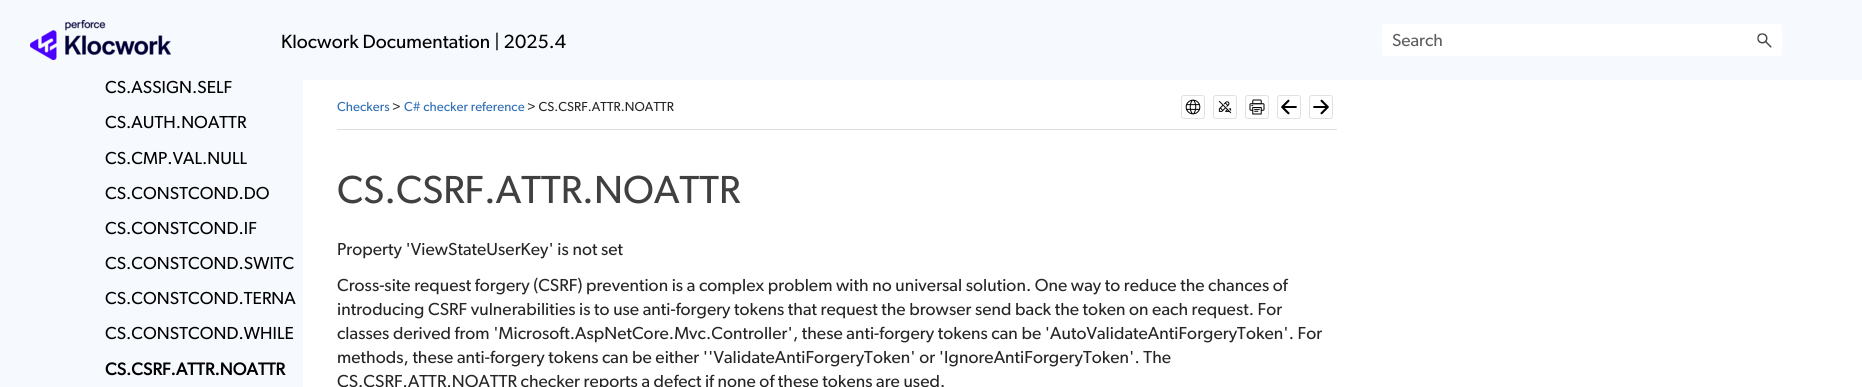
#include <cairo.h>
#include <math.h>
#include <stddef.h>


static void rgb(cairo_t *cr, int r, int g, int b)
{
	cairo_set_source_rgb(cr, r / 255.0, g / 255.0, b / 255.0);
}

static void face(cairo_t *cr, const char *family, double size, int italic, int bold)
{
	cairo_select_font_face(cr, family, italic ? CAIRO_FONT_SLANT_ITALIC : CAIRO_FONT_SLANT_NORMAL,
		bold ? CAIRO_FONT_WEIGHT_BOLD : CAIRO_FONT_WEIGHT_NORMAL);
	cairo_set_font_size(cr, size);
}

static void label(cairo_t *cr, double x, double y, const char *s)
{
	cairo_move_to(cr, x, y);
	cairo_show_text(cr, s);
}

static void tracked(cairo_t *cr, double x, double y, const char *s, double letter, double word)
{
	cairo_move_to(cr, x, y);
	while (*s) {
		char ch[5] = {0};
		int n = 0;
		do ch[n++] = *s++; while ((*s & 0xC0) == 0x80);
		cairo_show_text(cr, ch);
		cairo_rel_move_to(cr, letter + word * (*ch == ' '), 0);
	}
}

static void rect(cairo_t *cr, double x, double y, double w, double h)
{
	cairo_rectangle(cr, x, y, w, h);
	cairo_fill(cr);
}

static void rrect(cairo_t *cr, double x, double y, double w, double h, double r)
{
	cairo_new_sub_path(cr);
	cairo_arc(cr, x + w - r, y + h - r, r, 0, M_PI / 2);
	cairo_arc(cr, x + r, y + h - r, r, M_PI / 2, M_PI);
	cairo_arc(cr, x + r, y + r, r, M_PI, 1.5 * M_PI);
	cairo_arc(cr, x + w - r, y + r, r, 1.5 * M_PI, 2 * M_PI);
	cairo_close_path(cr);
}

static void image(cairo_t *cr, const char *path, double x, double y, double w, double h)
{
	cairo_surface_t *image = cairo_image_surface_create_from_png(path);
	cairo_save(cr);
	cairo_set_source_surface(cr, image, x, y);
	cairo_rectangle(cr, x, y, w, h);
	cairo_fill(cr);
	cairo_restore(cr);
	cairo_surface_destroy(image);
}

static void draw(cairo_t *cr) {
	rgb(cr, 255, 255, 255);
	cairo_paint(cr);
	rgb(cr, 246, 249, 253);
	rect(cr, 0, 0, 1862, 80);
	image(cr, "image0.png", 30, 20, 141, 40);
	face(cr, "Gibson", 17.6, 0, 0);
	rgb(cr, 0, 0, 0);
	tracked(cr, 281, 48, "Klocwork Documentation | 2025.4", 0.08, 0);
	rgb(cr, 255, 255, 255);
	rrect(cr, 1382, 24, 400, 32, 3);
	cairo_fill(cr);
	face(cr, "Gibson", 16, 0, 0);
	rgb(cr, 95, 95, 95);
	label(cr, 1392, 46, "Search");
	image(cr, "image1.png", 1757, 33, 15, 15);
	rgb(cr, 246, 249, 253);
	rect(cr, 0, 80, 303, 307);
	rgb(cr, 0, 0, 0);
	tracked(cr, 105, 93, "CS.ASSIGN.SELF", 0.08, 0);
	tracked(cr, 105, 128, "CS.AUTH.NOATTR", 0.08, 0);
	tracked(cr, 105, 164, "CS.CMP.VAL.NULL", 0.08, 0);
	tracked(cr, 105, 199, "CS.CONSTCOND.DO", 0.08, 0);
	tracked(cr, 105, 234, "CS.CONSTCOND.IF", 0.08, 0);
	tracked(cr, 105, 269, "CS.CONSTCOND.SWITC", 0.08, 0);
	tracked(cr, 105, 304, "CS.CONSTCOND.TERNA", 0.08, 0);
	tracked(cr, 105, 339, "CS.CONSTCOND.WHILE", 0.08, 0);
	face(cr, "Gibson", 16, 0, 1);
	tracked(cr, 105, 375, "CS.CSRF.ATTR.NOATTR", 0.08, 0);
	rgb(cr, 221, 224, 227);
	rect(cr, 337, 129, 1000, 1);
	face(cr, "Gibson", 12, 0, 0);
	rgb(cr, 47, 109, 181);
	tracked(cr, 337, 111, "Checkers", 0.08, 0);
	rgb(cr, 38, 38, 38);
	tracked(cr, 392, 111, ">", 0.08, 0);
	rgb(cr, 47, 109, 181);
	tracked(cr, 404, 111, "C# checker reference", 0.08, 0);
	rgb(cr, 38, 38, 38);
	tracked(cr, 527, 111, "> CS.CSRF.ATTR.NOATTR", 0.08, 0);
	image(cr, "image2.png", 1185, 99, 16, 16);
	rrect(cr, 1181.5, 95.5, 23, 23, 2.5);
	rgb(cr, 225, 225, 225);
	cairo_set_line_width(cr, 1);
	cairo_stroke(cr);
	image(cr, "image3.png", 1218, 100, 14, 14);
	rrect(cr, 1213.5, 95.5, 23, 23, 2.5);
	cairo_stroke(cr);
	image(cr, "image4.png", 1249, 99, 16, 16);
	rrect(cr, 1245.5, 95.5, 23, 23, 2.5);
	cairo_stroke(cr);
	image(cr, "image5.png", 1281, 99, 16, 16);
	rrect(cr, 1277.5, 95.5, 23, 23, 2.5);
	cairo_stroke(cr);
	image(cr, "image6.png", 1313, 99, 16, 16);
	rrect(cr, 1309.5, 95.5, 23, 23, 2.5);
	cairo_stroke(cr);
	face(cr, "Gibson", 36, 0, 0);
	rgb(cr, 64, 64, 64);
	tracked(cr, 337, 203, "CS.CSRF.ATTR.NOATTR", 0.08, 0);
	face(cr, "Gibson", 16, 0, 0);
	rgb(cr, 38, 38, 38);
	tracked(cr, 337, 255, "Property 'ViewStateUserKey' is not set", 0.08, 0);
	tracked(cr, 337, 291, "Cross-site request forgery (CSRF) prevention is a complex problem with no universal solution. One way to reduce the chances of", 0.08, 0);
	tracked(cr, 337, 315, "introducing CSRF vulnerabilities is to use anti-forgery tokens that request the browser send back the token on each request. For", 0.08, 0);
	tracked(cr, 337, 339, "classes derived from 'Microsoft.AspNetCore.Mvc.Controller', these anti-forgery tokens can be 'AutoValidateAntiForgeryToken'. For", 0.08, 0);
	tracked(cr, 337, 363, "methods, these anti-forgery tokens can be either ''ValidateAntiForgeryToken' or 'IgnoreAntiForgeryToken'. The", 0.08, 0);
	tracked(cr, 337, 387, "CS.CSRF.ATTR.NOATTR checker reports a defect if none of these tokens are used.", 0.08, 0);
}

int main(void) {
	cairo_surface_t *surface = cairo_image_surface_create(CAIRO_FORMAT_RGB24, 1862, 387);
	cairo_t *cr = cairo_create(surface);
	cairo_font_options_t *options = cairo_font_options_create();
	cairo_font_options_set_hint_metrics(options, CAIRO_HINT_METRICS_OFF);
	cairo_font_options_set_hint_style(options, CAIRO_HINT_STYLE_NONE);
	cairo_set_font_options(cr, options);
	cairo_set_miter_limit(cr, 4);
	draw(cr);
	cairo_surface_write_to_png(surface, "render.png");
	cairo_font_options_destroy(options);
	cairo_destroy(cr);
	cairo_surface_destroy(surface);
	return 0;
}
